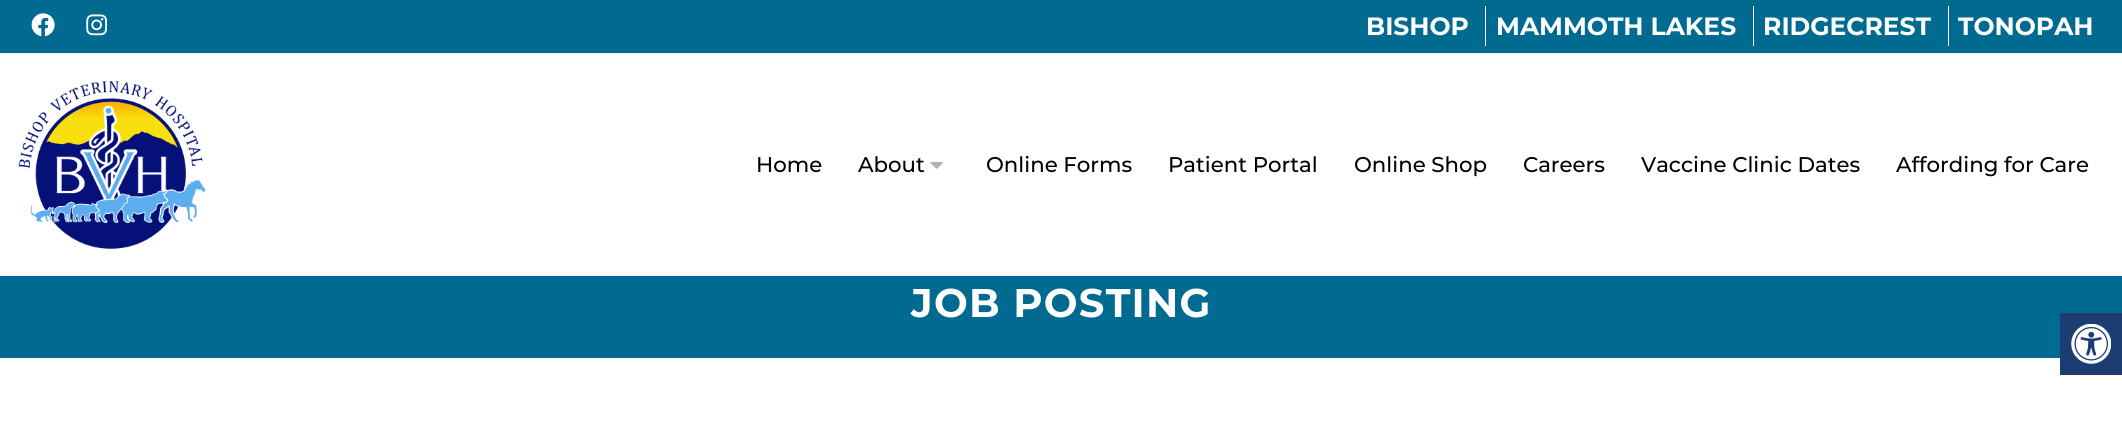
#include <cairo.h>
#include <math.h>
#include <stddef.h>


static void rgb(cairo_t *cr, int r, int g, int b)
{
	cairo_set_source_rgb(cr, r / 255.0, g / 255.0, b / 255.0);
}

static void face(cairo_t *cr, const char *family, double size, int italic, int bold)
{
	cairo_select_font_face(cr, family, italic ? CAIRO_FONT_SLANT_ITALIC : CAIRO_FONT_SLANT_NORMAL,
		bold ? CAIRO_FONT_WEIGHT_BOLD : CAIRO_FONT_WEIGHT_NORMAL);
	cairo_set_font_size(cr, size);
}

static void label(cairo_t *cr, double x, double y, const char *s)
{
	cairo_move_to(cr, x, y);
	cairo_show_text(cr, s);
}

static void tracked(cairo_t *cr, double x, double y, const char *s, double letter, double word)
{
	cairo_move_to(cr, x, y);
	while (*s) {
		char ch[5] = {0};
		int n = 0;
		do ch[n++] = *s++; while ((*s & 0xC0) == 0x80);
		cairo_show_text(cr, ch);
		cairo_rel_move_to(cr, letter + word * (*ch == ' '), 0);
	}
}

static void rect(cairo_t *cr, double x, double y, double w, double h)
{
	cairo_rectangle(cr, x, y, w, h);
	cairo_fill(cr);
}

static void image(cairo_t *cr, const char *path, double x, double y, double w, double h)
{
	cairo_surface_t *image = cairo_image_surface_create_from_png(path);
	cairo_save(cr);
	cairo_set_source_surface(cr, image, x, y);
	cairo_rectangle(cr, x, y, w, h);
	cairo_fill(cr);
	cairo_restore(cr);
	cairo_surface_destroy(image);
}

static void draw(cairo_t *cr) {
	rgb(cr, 255, 255, 255);
	cairo_paint(cr);
	rgb(cr, 0, 106, 145);
	rect(cr, 0, 0, 2122, 53);
	image(cr, "image0.png", 31, 13, 24, 24);
	image(cr, "image1.png", 86, 14, 22, 22);
	face(cr, "Montserrat", 25, 0, 1);
	rgb(cr, 255, 255, 255);
	label(cr, 1366, 35, "BISHOP");
	rect(cr, 1485, 6, 1, 40);
	label(cr, 1496, 35, "MAMMOTH LAKES");
	rect(cr, 1753, 6, 1, 40);
	label(cr, 1763, 35, "RIDGECREST");
	rect(cr, 1948, 6, 1, 40);
	label(cr, 1958, 35, "TONOPAH");
	rgb(cr, 240, 248, 255);
	rect(cr, 0, 53, 2122, 1);
	image(cr, "image2.png", 18, 81, 188, 168);
	face(cr, "Montserrat Medium", 21.25, 0, 0);
	rgb(cr, 0, 0, 0);
	label(cr, 756, 172, "Home");
	label(cr, 858, 172, "About");
	image(cr, "image3.png", 930, 161, 13, 8);
	label(cr, 986, 172, "Online Forms");
	label(cr, 1168, 172, "Patient Portal");
	label(cr, 1354, 172, "Online Shop");
	label(cr, 1523, 172, "Careers");
	label(cr, 1641, 172, "Vaccine Clinic Dates");
	label(cr, 1896, 172, "Affording for Care");
	rgb(cr, 0, 106, 145);
	rect(cr, 0, 276, 2122, 82);
	face(cr, "Montserrat", 40, 0, 1);
	rgb(cr, 255, 255, 255);
	tracked(cr, 911, 317, "JOB POSTING", 1.25, 0);
	rgb(cr, 28, 61, 114);
	rect(cr, 2060, 313, 62, 62);
	image(cr, "image4.png", 2071, 324, 40, 40);
}

int main(void) {
	cairo_surface_t *surface = cairo_image_surface_create(CAIRO_FORMAT_RGB24, 2122, 447);
	cairo_t *cr = cairo_create(surface);
	cairo_font_options_t *options = cairo_font_options_create();
	cairo_font_options_set_hint_metrics(options, CAIRO_HINT_METRICS_OFF);
	cairo_font_options_set_hint_style(options, CAIRO_HINT_STYLE_NONE);
	cairo_set_font_options(cr, options);
	cairo_set_miter_limit(cr, 4);
	draw(cr);
	cairo_surface_write_to_png(surface, "render.png");
	cairo_font_options_destroy(options);
	cairo_destroy(cr);
	cairo_surface_destroy(surface);
	return 0;
}
